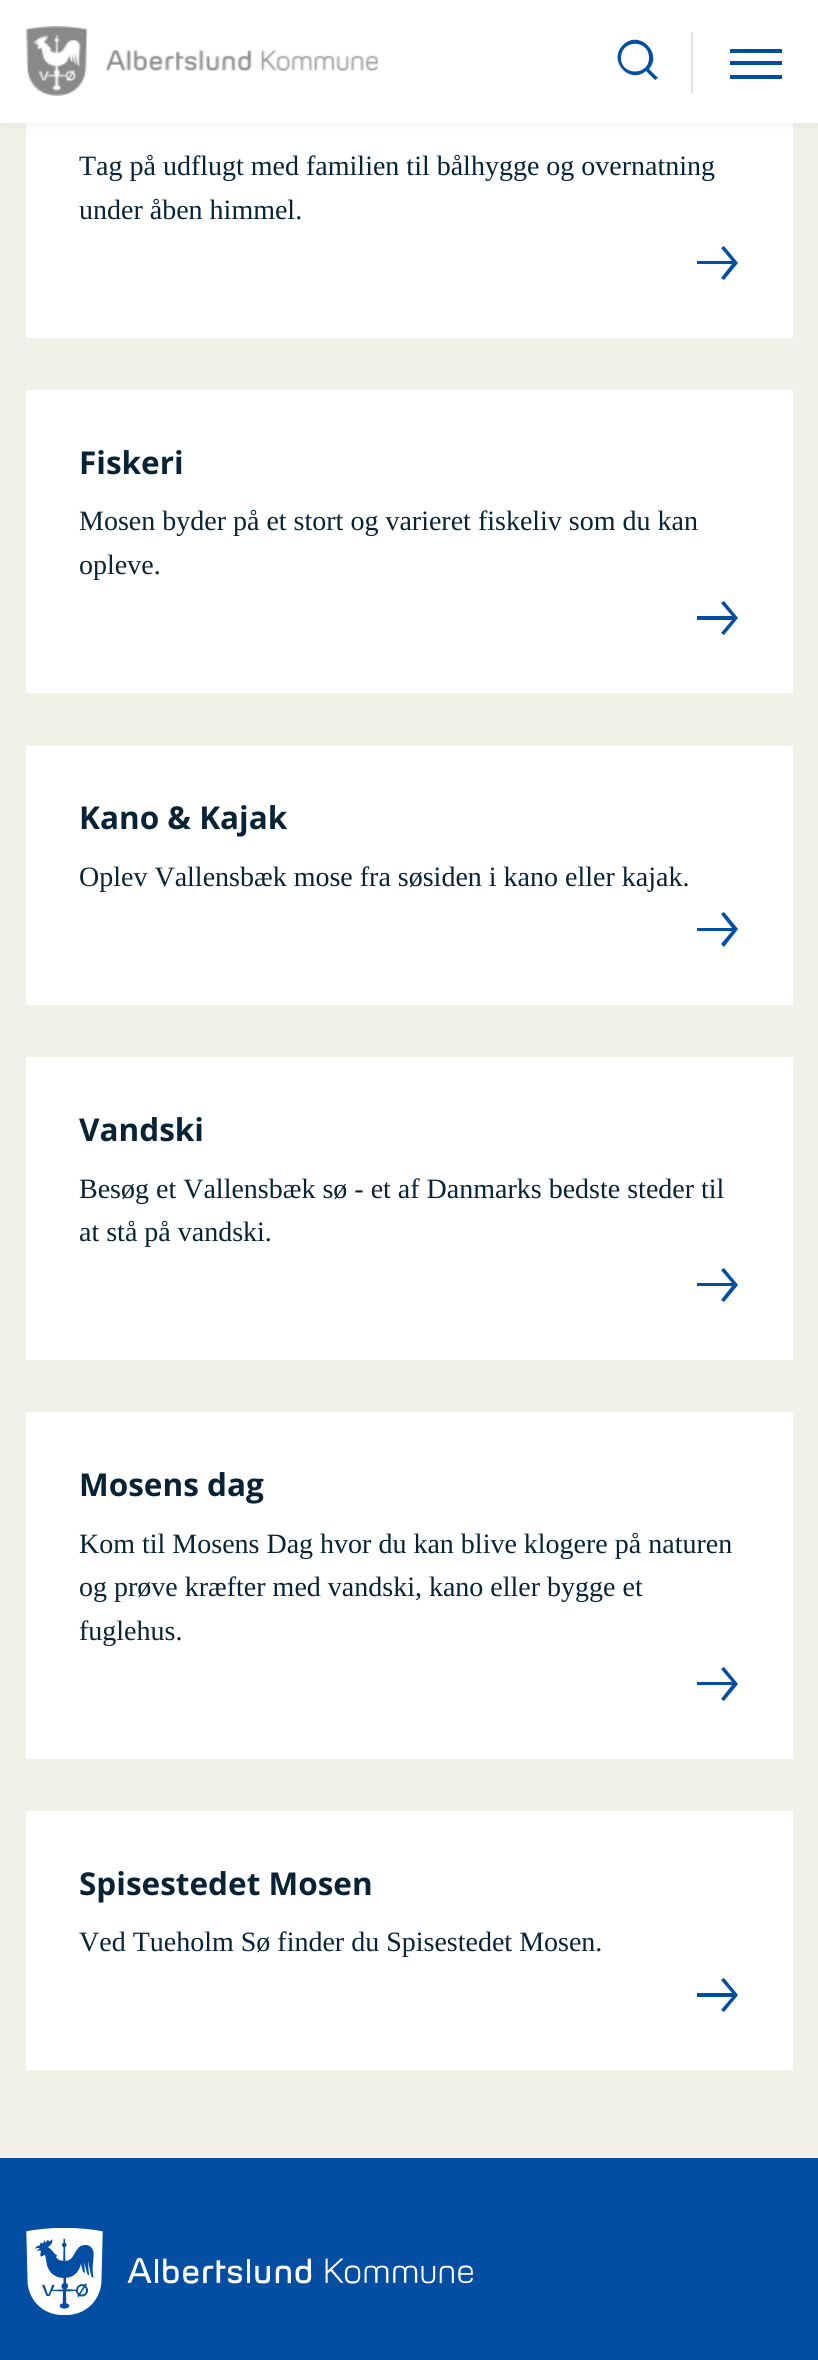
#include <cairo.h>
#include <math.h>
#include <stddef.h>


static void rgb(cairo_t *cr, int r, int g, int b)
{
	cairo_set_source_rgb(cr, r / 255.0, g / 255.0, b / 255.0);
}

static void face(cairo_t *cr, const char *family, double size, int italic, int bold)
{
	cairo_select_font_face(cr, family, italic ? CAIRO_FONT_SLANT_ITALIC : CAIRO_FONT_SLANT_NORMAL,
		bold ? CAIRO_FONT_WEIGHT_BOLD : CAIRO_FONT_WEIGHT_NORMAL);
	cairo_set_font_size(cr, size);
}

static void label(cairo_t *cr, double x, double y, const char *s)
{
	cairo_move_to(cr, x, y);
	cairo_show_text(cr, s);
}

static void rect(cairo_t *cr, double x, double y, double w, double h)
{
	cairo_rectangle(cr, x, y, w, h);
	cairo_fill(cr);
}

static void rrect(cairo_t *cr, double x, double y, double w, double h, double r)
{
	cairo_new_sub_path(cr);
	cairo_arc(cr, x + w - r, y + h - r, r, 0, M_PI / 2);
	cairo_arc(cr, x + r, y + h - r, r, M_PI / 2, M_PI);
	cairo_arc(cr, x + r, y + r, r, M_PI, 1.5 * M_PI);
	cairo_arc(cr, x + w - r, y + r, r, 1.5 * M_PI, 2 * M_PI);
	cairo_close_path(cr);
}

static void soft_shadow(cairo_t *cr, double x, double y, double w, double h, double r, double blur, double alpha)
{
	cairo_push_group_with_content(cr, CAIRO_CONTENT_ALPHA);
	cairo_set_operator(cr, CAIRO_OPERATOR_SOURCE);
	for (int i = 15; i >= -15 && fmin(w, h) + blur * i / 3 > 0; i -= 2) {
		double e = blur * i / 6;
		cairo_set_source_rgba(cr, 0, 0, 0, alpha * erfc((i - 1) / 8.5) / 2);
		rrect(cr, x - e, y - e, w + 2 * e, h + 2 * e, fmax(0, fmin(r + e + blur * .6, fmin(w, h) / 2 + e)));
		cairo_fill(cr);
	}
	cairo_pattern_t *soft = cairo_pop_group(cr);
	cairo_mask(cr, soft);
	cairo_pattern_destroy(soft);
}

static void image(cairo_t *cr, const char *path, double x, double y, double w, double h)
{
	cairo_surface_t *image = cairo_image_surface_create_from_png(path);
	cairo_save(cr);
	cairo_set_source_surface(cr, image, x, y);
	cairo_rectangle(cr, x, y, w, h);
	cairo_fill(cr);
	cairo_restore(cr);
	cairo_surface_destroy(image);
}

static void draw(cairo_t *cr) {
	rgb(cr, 241, 241, 233);
	cairo_paint(cr);
	rgb(cr, 255, 255, 255);
	rect(cr, 26, 123, 767, 215);
	rgb(cr, 0, 0, 0);
	soft_shadow(cr, 0, 4, 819, 122, 0, 3.5, 0.05);
	rgb(cr, 255, 255, 255);
	rect(cr, 0, 0, 818, 123);
	image(cr, "image0.png", 26, 26, 352, 70);
	rgb(cr, 3, 78, 162);
	cairo_set_fill_rule(cr, CAIRO_FILL_RULE_EVEN_ODD);
	cairo_new_path(cr);
	cairo_move_to(cr, 646, 71);
	cairo_curve_to(cr, 630, 85, 607, 61, 623, 45);
	cairo_curve_to(cr, 639, 29, 663, 53, 649, 69);
	cairo_line_to(cr, 658, 78);
	cairo_line_to(cr, 655, 80);
	cairo_close_path(cr);
	cairo_move_to(cr, 649, 58);
	cairo_curve_to(cr, 649, 76, 621, 76, 621, 58);
	cairo_curve_to(cr, 621, 39, 649, 39, 649, 58);
	cairo_close_path(cr);
	cairo_fill(cr);
	rgb(cr, 227, 227, 227);
	rect(cr, 691, 32, 2, 61);
	rgb(cr, 3, 78, 162);
	rect(cr, 730, 49, 52, 4);
	rect(cr, 730, 61, 52, 4);
	rect(cr, 730, 75, 52, 4);
	face(cr, "Liberation Serif", 28, 0, 0);
	rgb(cr, 7, 35, 53);
	label(cr, 79, 175, "Tag på udflugt med familien til bålhygge og overnatning");
	label(cr, 79, 219, "under åben himmel.");
	rgb(cr, 3, 78, 162);
	cairo_set_fill_rule(cr, CAIRO_FILL_RULE_WINDING);
	cairo_new_path(cr);
	cairo_move_to(cr, 724, 246);
	cairo_line_to(cr, 721, 248);
	cairo_line_to(cr, 732, 261);
	cairo_line_to(cr, 697, 261);
	cairo_line_to(cr, 697, 264);
	cairo_line_to(cr, 732, 264);
	cairo_line_to(cr, 721, 278);
	cairo_line_to(cr, 724, 280);
	cairo_line_to(cr, 738, 263);
	cairo_close_path(cr);
	cairo_fill(cr);
	rgb(cr, 255, 255, 255);
	rect(cr, 26, 390, 767, 303);
	face(cr, "Open Sans", 31.5, 0, 1);
	rgb(cr, 7, 35, 53);
	label(cr, 79, 474, "Fiskeri");
	face(cr, "Liberation Serif", 28, 0, 0);
	label(cr, 79, 530, "Mosen byder på et stort og varieret fiskeliv som du kan");
	label(cr, 79, 574, "opleve.");
	rgb(cr, 3, 78, 162);
	cairo_new_path(cr);
	cairo_move_to(cr, 724, 601);
	cairo_line_to(cr, 721, 603);
	cairo_line_to(cr, 732, 616);
	cairo_line_to(cr, 697, 616);
	cairo_line_to(cr, 697, 620);
	cairo_line_to(cr, 732, 620);
	cairo_line_to(cr, 721, 633);
	cairo_line_to(cr, 724, 635);
	cairo_line_to(cr, 738, 618);
	cairo_close_path(cr);
	cairo_fill(cr);
	rgb(cr, 255, 255, 255);
	rect(cr, 26, 746, 767, 259);
	face(cr, "Open Sans", 31.5, 0, 1);
	rgb(cr, 7, 35, 53);
	label(cr, 79, 829, "Kano & Kajak");
	face(cr, "Liberation Serif", 28, 0, 0);
	label(cr, 79, 886, "Oplev Vallensbæk mose fra søsiden i kano eller kajak.");
	rgb(cr, 3, 78, 162);
	cairo_new_path(cr);
	cairo_move_to(cr, 724, 912);
	cairo_line_to(cr, 721, 914);
	cairo_line_to(cr, 732, 928);
	cairo_line_to(cr, 697, 928);
	cairo_line_to(cr, 697, 931);
	cairo_line_to(cr, 732, 931);
	cairo_line_to(cr, 721, 944);
	cairo_line_to(cr, 724, 947);
	cairo_line_to(cr, 738, 929);
	cairo_close_path(cr);
	cairo_fill(cr);
	rgb(cr, 255, 255, 255);
	rect(cr, 26, 1057, 767, 303);
	face(cr, "Open Sans", 31.5, 0, 1);
	rgb(cr, 7, 35, 53);
	label(cr, 79, 1141, "Vandski");
	face(cr, "Liberation Serif", 28, 0, 0);
	label(cr, 79, 1198, "Besøg et Vallensbæk sø - et af Danmarks bedste steder til");
	label(cr, 79, 1241, "at stå på vandski.");
	rgb(cr, 3, 78, 162);
	cairo_new_path(cr);
	cairo_move_to(cr, 724, 1268);
	cairo_line_to(cr, 721, 1270);
	cairo_line_to(cr, 732, 1283);
	cairo_line_to(cr, 697, 1283);
	cairo_line_to(cr, 697, 1286);
	cairo_line_to(cr, 732, 1286);
	cairo_line_to(cr, 721, 1300);
	cairo_line_to(cr, 724, 1302);
	cairo_line_to(cr, 738, 1285);
	cairo_close_path(cr);
	cairo_fill(cr);
	rgb(cr, 255, 255, 255);
	rect(cr, 26, 1412, 767, 347);
	face(cr, "Open Sans", 31.5, 0, 1);
	rgb(cr, 7, 35, 53);
	label(cr, 79, 1496, "Mosens dag");
	face(cr, "Liberation Serif", 28, 0, 0);
	label(cr, 79, 1553, "Kom til Mosens Dag hvor du kan blive klogere på naturen");
	label(cr, 79, 1596, "og prøve kræfter med vandski, kano eller bygge et");
	label(cr, 79, 1640, "fuglehus.");
	rgb(cr, 3, 78, 162);
	cairo_new_path(cr);
	cairo_move_to(cr, 724, 1667);
	cairo_line_to(cr, 721, 1669);
	cairo_line_to(cr, 732, 1682);
	cairo_line_to(cr, 697, 1682);
	cairo_line_to(cr, 697, 1685);
	cairo_line_to(cr, 732, 1685);
	cairo_line_to(cr, 721, 1699);
	cairo_line_to(cr, 724, 1701);
	cairo_line_to(cr, 738, 1684);
	cairo_close_path(cr);
	cairo_fill(cr);
	rgb(cr, 255, 255, 255);
	rect(cr, 26, 1811, 767, 259);
	face(cr, "Open Sans", 31.5, 0, 1);
	rgb(cr, 7, 35, 53);
	label(cr, 79, 1895, "Spisestedet Mosen");
	face(cr, "Liberation Serif", 28, 0, 0);
	label(cr, 79, 1951, "Ved Tueholm Sø finder du Spisestedet Mosen.");
	rgb(cr, 3, 78, 162);
	cairo_new_path(cr);
	cairo_move_to(cr, 724, 1978);
	cairo_line_to(cr, 721, 1980);
	cairo_line_to(cr, 732, 1993);
	cairo_line_to(cr, 697, 1993);
	cairo_line_to(cr, 697, 1997);
	cairo_line_to(cr, 732, 1997);
	cairo_line_to(cr, 721, 2010);
	cairo_line_to(cr, 724, 2012);
	cairo_line_to(cr, 738, 1995);
	cairo_close_path(cr);
	cairo_fill(cr);
	rect(cr, 0, 2158, 818, 202);
	image(cr, "image1.png", 26, 2228, 447, 87);
}

int main(void) {
	cairo_surface_t *surface = cairo_image_surface_create(CAIRO_FORMAT_RGB24, 818, 2360);
	cairo_t *cr = cairo_create(surface);
	cairo_font_options_t *options = cairo_font_options_create();
	cairo_font_options_set_hint_metrics(options, CAIRO_HINT_METRICS_OFF);
	cairo_font_options_set_hint_style(options, CAIRO_HINT_STYLE_NONE);
	cairo_set_font_options(cr, options);
	cairo_set_miter_limit(cr, 4);
	draw(cr);
	cairo_surface_write_to_png(surface, "render.png");
	cairo_font_options_destroy(options);
	cairo_destroy(cr);
	cairo_surface_destroy(surface);
	return 0;
}
